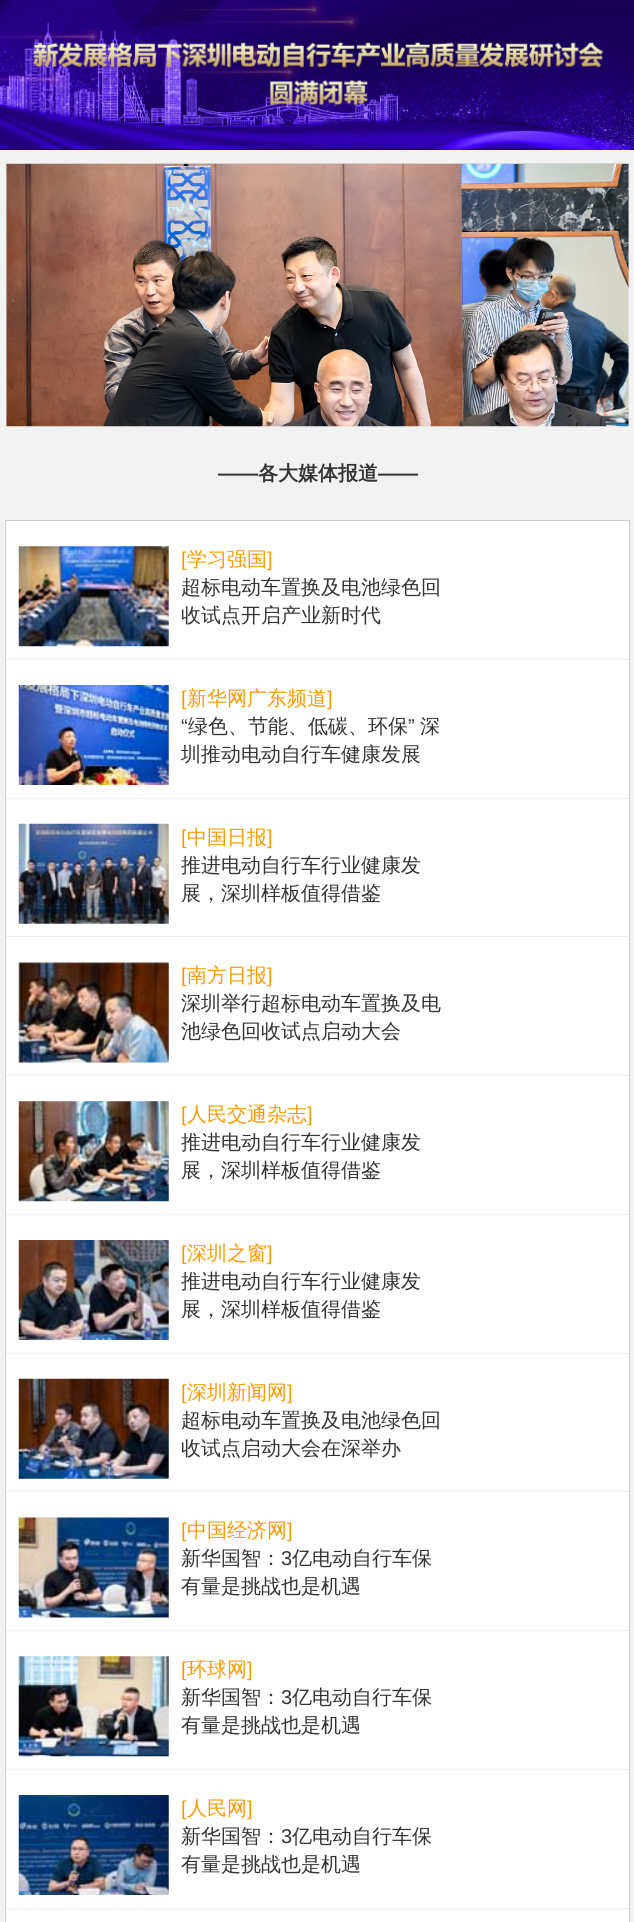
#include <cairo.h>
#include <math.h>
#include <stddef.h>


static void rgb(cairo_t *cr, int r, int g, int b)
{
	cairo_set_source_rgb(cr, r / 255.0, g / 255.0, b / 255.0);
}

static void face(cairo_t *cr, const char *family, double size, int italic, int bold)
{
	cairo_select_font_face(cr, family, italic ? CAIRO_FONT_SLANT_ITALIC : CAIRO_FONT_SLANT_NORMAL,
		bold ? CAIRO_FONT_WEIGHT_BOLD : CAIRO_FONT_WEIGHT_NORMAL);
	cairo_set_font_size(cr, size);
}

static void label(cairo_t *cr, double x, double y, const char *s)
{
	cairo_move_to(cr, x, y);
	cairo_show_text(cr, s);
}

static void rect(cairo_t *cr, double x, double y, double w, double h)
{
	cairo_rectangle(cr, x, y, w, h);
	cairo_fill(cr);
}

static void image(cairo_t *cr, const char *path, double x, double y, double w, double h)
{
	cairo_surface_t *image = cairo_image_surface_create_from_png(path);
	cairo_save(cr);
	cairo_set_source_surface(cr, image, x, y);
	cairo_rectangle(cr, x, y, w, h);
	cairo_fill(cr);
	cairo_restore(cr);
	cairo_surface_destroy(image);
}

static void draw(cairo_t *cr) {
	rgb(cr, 242, 242, 242);
	cairo_paint(cr);
	image(cr, "image0.png", 0, 0, 634, 150);
	rgb(cr, 215, 215, 215);
	rect(cr, 6, 163, 623, 1);
	image(cr, "image1.png", 6, 163, 623, 264);
	face(cr, "Liberation Sans", 20, 0, 1);
	rgb(cr, 51, 51, 51);
	label(cr, 218, 480, "——");
	face(cr, "WenQuanYi Zen Hei", 20, 0, 1);
	label(cr, 258, 480, "各大媒体报道");
	face(cr, "Liberation Sans", 20, 0, 1);
	label(cr, 378, 480, "——");
	rgb(cr, 255, 255, 255);
	cairo_rectangle(cr, 5.5, 520.5, 624, 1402);
	cairo_fill_preserve(cr);
	rgb(cr, 204, 204, 204);
	cairo_set_line_width(cr, 1);
	cairo_stroke(cr);
	rgb(cr, 238, 238, 238);
	rect(cr, 6, 659, 623, 1);
	image(cr, "image2.png", 18, 546, 151, 101);
	face(cr, "Liberation Sans", 20, 0, 0);
	rgb(cr, 255, 153, 0);
	label(cr, 181, 566, "[");
	face(cr, "WenQuanYi Zen Hei Medium", 20, 0, 0);
	label(cr, 187, 566, "学习强国");
	face(cr, "Liberation Sans", 20, 0, 0);
	label(cr, 267, 566, "]");
	face(cr, "WenQuanYi Zen Hei Medium", 20, 0, 0);
	rgb(cr, 51, 51, 51);
	label(cr, 181, 594, "超标电动车置换及电池绿色回");
	label(cr, 181, 622, "收试点开启产业新时代");
	rgb(cr, 238, 238, 238);
	rect(cr, 6, 798, 623, 1);
	image(cr, "image3.png", 18, 685, 151, 100);
	face(cr, "Liberation Sans", 20, 0, 0);
	rgb(cr, 255, 153, 0);
	label(cr, 181, 705, "[");
	face(cr, "WenQuanYi Zen Hei Medium", 20, 0, 0);
	label(cr, 187, 705, "新华网广东频道");
	face(cr, "Liberation Sans", 20, 0, 0);
	label(cr, 327, 705, "]");
	rgb(cr, 51, 51, 51);
	label(cr, 181, 733, "“");
	face(cr, "WenQuanYi Zen Hei Medium", 20, 0, 0);
	label(cr, 188, 733, "绿色、节能、低碳、环保");
	face(cr, "Liberation Sans", 20, 0, 0);
	label(cr, 408, 733, "”");
	face(cr, "WenQuanYi Zen Hei Medium", 20, 0, 0);
	label(cr, 420, 733, "深");
	label(cr, 181, 761, "圳推动电动自行车健康发展");
	rgb(cr, 238, 238, 238);
	rect(cr, 6, 936, 623, 1);
	image(cr, "image4.png", 18, 823, 151, 101);
	face(cr, "Liberation Sans", 20, 0, 0);
	rgb(cr, 255, 153, 0);
	label(cr, 181, 844, "[");
	face(cr, "WenQuanYi Zen Hei Medium", 20, 0, 0);
	label(cr, 187, 844, "中国日报");
	face(cr, "Liberation Sans", 20, 0, 0);
	label(cr, 267, 844, "]");
	face(cr, "WenQuanYi Zen Hei Medium", 20, 0, 0);
	rgb(cr, 51, 51, 51);
	label(cr, 181, 872, "推进电动自行车行业健康发");
	label(cr, 181, 900, "展，深圳样板值得借鉴");
	rgb(cr, 238, 238, 238);
	rect(cr, 6, 1075, 623, 1);
	image(cr, "image5.png", 18, 962, 151, 101);
	face(cr, "Liberation Sans", 20, 0, 0);
	rgb(cr, 255, 153, 0);
	label(cr, 181, 982, "[");
	face(cr, "WenQuanYi Zen Hei Medium", 20, 0, 0);
	label(cr, 187, 982, "南方日报");
	face(cr, "Liberation Sans", 20, 0, 0);
	label(cr, 267, 982, "]");
	face(cr, "WenQuanYi Zen Hei Medium", 20, 0, 0);
	rgb(cr, 51, 51, 51);
	label(cr, 181, 1010, "深圳举行超标电动车置换及电");
	label(cr, 181, 1038, "池绿色回收试点启动大会");
	rgb(cr, 238, 238, 238);
	rect(cr, 6, 1214, 623, 1);
	image(cr, "image6.png", 18, 1101, 151, 101);
	face(cr, "Liberation Sans", 20, 0, 0);
	rgb(cr, 255, 153, 0);
	label(cr, 181, 1121, "[");
	face(cr, "WenQuanYi Zen Hei Medium", 20, 0, 0);
	label(cr, 187, 1121, "人民交通杂志");
	face(cr, "Liberation Sans", 20, 0, 0);
	label(cr, 307, 1121, "]");
	face(cr, "WenQuanYi Zen Hei Medium", 20, 0, 0);
	rgb(cr, 51, 51, 51);
	label(cr, 181, 1149, "推进电动自行车行业健康发");
	label(cr, 181, 1177, "展，深圳样板值得借鉴");
	rgb(cr, 238, 238, 238);
	rect(cr, 6, 1353, 623, 1);
	image(cr, "image7.png", 18, 1240, 151, 100);
	face(cr, "Liberation Sans", 20, 0, 0);
	rgb(cr, 255, 153, 0);
	label(cr, 181, 1260, "[");
	face(cr, "WenQuanYi Zen Hei Medium", 20, 0, 0);
	label(cr, 187, 1260, "深圳之窗");
	face(cr, "Liberation Sans", 20, 0, 0);
	label(cr, 267, 1260, "]");
	face(cr, "WenQuanYi Zen Hei Medium", 20, 0, 0);
	rgb(cr, 51, 51, 51);
	label(cr, 181, 1288, "推进电动自行车行业健康发");
	label(cr, 181, 1316, "展，深圳样板值得借鉴");
	rgb(cr, 238, 238, 238);
	rect(cr, 6, 1491, 623, 1);
	image(cr, "image8.png", 18, 1378, 151, 101);
	face(cr, "Liberation Sans", 20, 0, 0);
	rgb(cr, 255, 153, 0);
	label(cr, 181, 1399, "[");
	face(cr, "WenQuanYi Zen Hei Medium", 20, 0, 0);
	label(cr, 187, 1399, "深圳新闻网");
	face(cr, "Liberation Sans", 20, 0, 0);
	label(cr, 287, 1399, "]");
	face(cr, "WenQuanYi Zen Hei Medium", 20, 0, 0);
	rgb(cr, 51, 51, 51);
	label(cr, 181, 1427, "超标电动车置换及电池绿色回");
	label(cr, 181, 1455, "收试点启动大会在深举办");
	rgb(cr, 238, 238, 238);
	rect(cr, 6, 1630, 623, 1);
	image(cr, "image9.png", 18, 1517, 151, 101);
	face(cr, "Liberation Sans", 20, 0, 0);
	rgb(cr, 255, 153, 0);
	label(cr, 181, 1537, "[");
	face(cr, "WenQuanYi Zen Hei Medium", 20, 0, 0);
	label(cr, 187, 1537, "中国经济网");
	face(cr, "Liberation Sans", 20, 0, 0);
	label(cr, 287, 1537, "]");
	face(cr, "WenQuanYi Zen Hei Medium", 20, 0, 0);
	rgb(cr, 51, 51, 51);
	label(cr, 181, 1565, "新华国智：");
	face(cr, "Liberation Sans", 20, 0, 0);
	label(cr, 281, 1565, "3");
	face(cr, "WenQuanYi Zen Hei Medium", 20, 0, 0);
	label(cr, 292, 1565, "亿电动自行车保");
	label(cr, 181, 1593, "有量是挑战也是机遇");
	rgb(cr, 238, 238, 238);
	rect(cr, 6, 1769, 623, 1);
	image(cr, "image10.png", 18, 1656, 151, 101);
	face(cr, "Liberation Sans", 20, 0, 0);
	rgb(cr, 255, 153, 0);
	label(cr, 181, 1676, "[");
	face(cr, "WenQuanYi Zen Hei Medium", 20, 0, 0);
	label(cr, 187, 1676, "环球网");
	face(cr, "Liberation Sans", 20, 0, 0);
	label(cr, 247, 1676, "]");
	face(cr, "WenQuanYi Zen Hei Medium", 20, 0, 0);
	rgb(cr, 51, 51, 51);
	label(cr, 181, 1704, "新华国智：");
	face(cr, "Liberation Sans", 20, 0, 0);
	label(cr, 281, 1704, "3");
	face(cr, "WenQuanYi Zen Hei Medium", 20, 0, 0);
	label(cr, 292, 1704, "亿电动自行车保");
	label(cr, 181, 1732, "有量是挑战也是机遇");
	rgb(cr, 238, 238, 238);
	rect(cr, 6, 1908, 623, 1);
	image(cr, "image11.png", 18, 1795, 151, 100);
	face(cr, "Liberation Sans", 20, 0, 0);
	rgb(cr, 255, 153, 0);
	label(cr, 181, 1815, "[");
	face(cr, "WenQuanYi Zen Hei Medium", 20, 0, 0);
	label(cr, 187, 1815, "人民网");
	face(cr, "Liberation Sans", 20, 0, 0);
	label(cr, 247, 1815, "]");
	face(cr, "WenQuanYi Zen Hei Medium", 20, 0, 0);
	rgb(cr, 51, 51, 51);
	label(cr, 181, 1843, "新华国智：");
	face(cr, "Liberation Sans", 20, 0, 0);
	label(cr, 281, 1843, "3");
	face(cr, "WenQuanYi Zen Hei Medium", 20, 0, 0);
	label(cr, 292, 1843, "亿电动自行车保");
	label(cr, 181, 1871, "有量是挑战也是机遇");
}

int main(void) {
	cairo_surface_t *surface = cairo_image_surface_create(CAIRO_FORMAT_RGB24, 634, 1922);
	cairo_t *cr = cairo_create(surface);
	cairo_font_options_t *options = cairo_font_options_create();
	cairo_font_options_set_hint_metrics(options, CAIRO_HINT_METRICS_OFF);
	cairo_font_options_set_hint_style(options, CAIRO_HINT_STYLE_NONE);
	cairo_set_font_options(cr, options);
	cairo_set_miter_limit(cr, 4);
	draw(cr);
	cairo_surface_write_to_png(surface, "render.png");
	cairo_font_options_destroy(options);
	cairo_destroy(cr);
	cairo_surface_destroy(surface);
	return 0;
}
